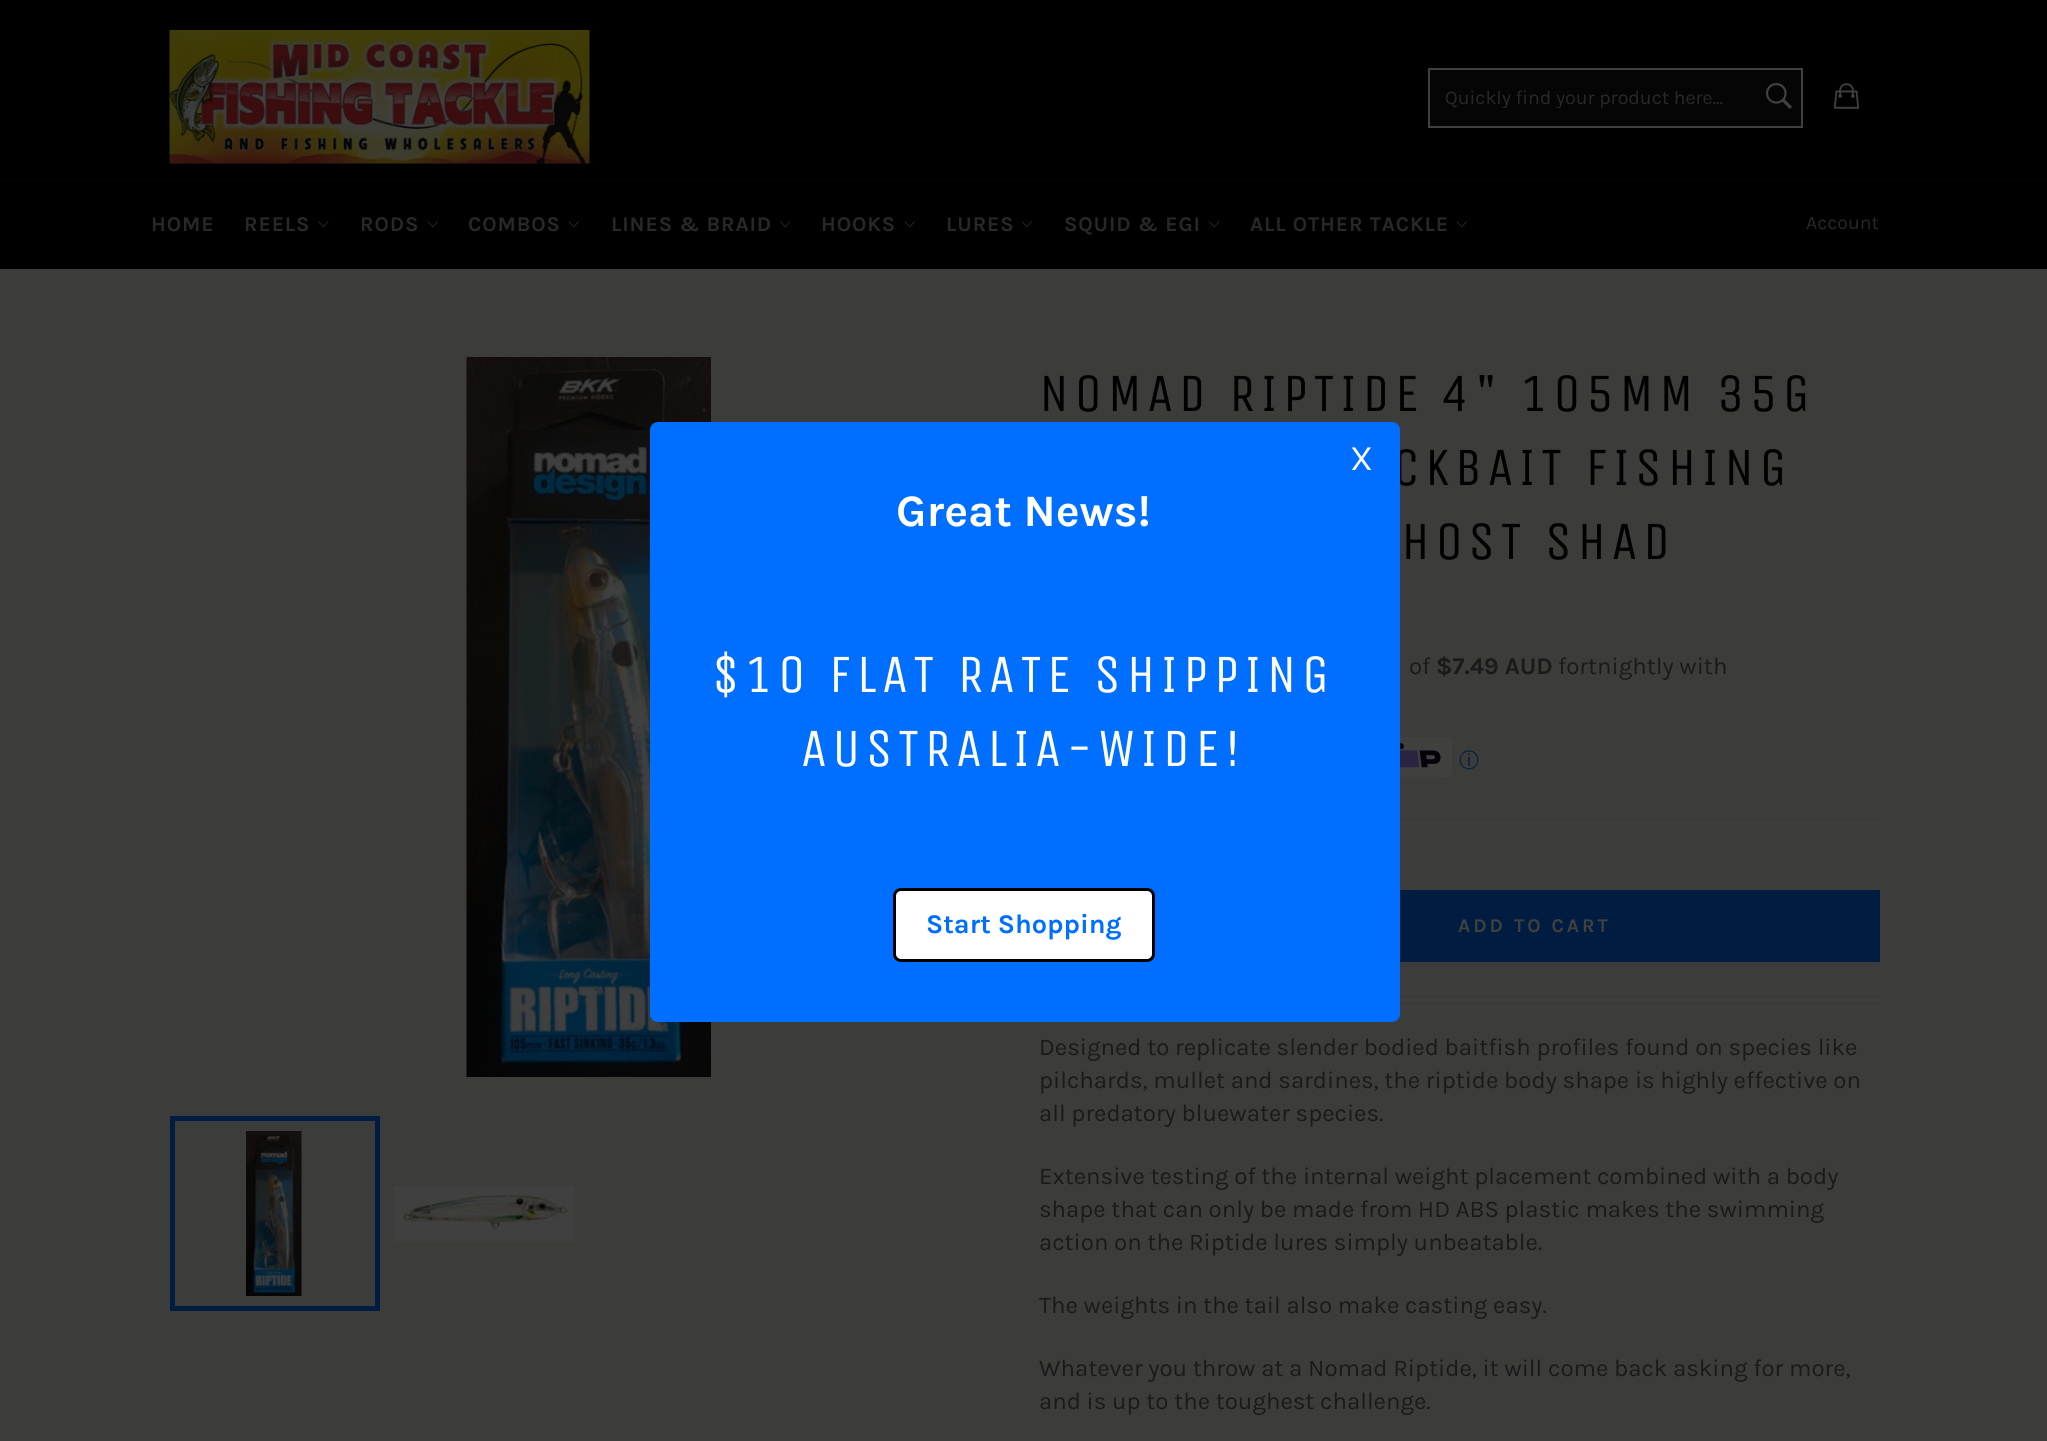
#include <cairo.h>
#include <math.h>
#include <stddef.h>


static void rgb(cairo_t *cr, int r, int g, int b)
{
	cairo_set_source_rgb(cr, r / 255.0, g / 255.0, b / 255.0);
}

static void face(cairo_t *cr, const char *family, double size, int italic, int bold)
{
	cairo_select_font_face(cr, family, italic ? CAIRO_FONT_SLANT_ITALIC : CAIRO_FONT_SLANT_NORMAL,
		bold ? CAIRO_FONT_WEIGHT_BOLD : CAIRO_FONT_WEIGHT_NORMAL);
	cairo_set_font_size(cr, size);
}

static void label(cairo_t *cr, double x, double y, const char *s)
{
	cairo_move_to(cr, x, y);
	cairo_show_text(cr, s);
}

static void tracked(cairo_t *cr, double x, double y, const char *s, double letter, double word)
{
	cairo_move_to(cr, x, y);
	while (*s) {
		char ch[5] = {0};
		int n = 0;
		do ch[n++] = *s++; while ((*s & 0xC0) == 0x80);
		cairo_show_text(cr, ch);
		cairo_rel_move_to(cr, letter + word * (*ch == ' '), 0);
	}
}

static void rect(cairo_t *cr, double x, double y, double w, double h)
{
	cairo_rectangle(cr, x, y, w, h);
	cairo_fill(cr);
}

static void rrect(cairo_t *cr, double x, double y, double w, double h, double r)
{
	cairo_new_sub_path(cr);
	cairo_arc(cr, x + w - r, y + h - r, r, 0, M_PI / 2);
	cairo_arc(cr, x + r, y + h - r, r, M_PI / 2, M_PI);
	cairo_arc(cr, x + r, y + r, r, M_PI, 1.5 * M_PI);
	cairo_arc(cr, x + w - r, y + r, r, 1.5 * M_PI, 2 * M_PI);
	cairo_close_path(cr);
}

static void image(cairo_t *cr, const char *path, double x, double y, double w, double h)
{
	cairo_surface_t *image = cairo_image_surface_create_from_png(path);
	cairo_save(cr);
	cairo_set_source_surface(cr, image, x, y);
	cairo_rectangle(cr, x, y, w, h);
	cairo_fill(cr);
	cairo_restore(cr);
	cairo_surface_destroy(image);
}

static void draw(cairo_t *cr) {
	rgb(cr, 60, 60, 58);
	cairo_paint(cr);
	rgb(cr, 0, 0, 0);
	rect(cr, 0, 0, 2047, 179);
	image(cr, "image0.png", 169, 30, 421, 134);
	rgb(cr, 5, 5, 5);
	cairo_rectangle(cr, 1429, 69, 373, 58);
	cairo_fill_preserve(cr);
	rgb(cr, 64, 64, 64);
	cairo_stroke(cr);
	cairo_save(cr);
	cairo_rectangle(cr, 1445, 86, 292, 22);
	cairo_clip(cr);
	face(cr, "Karla", 19.5, 0, 0);
	rgb(cr, 40, 40, 40);
	label(cr, 1445, 104, "Quickly find your product here...");
	cairo_restore(cr);
	image(cr, "image1.png", 1765, 82, 27, 27);
	image(cr, "image2.png", 1833, 83, 27, 26);
	rgb(cr, 4, 4, 4);
	rect(cr, 0, 179, 2047, 1);
	rgb(cr, 0, 0, 0);
	rect(cr, 0, 180, 2047, 89);
	face(cr, "Karla", 21, 0, 1);
	rgb(cr, 40, 40, 40);
	tracked(cr, 151, 231, "HOME", 0.9, 0);
	tracked(cr, 244, 231, "REELS", 0.9, 0);
	image(cr, "image3.png", 318, 221, 11, 7);
	tracked(cr, 360, 231, "RODS", 0.9, 0);
	image(cr, "image4.png", 427, 221, 11, 7);
	tracked(cr, 468, 231, "COMBOS", 0.9, 0);
	image(cr, "image4.png", 568, 221, 11, 7);
	tracked(cr, 611, 231, "LINES & BRAID", 0.9, 0);
	image(cr, "image3.png", 780, 221, 11, 7);
	tracked(cr, 821, 231, "HOOKS", 0.9, 0);
	image(cr, "image4.png", 904, 221, 11, 7);
	tracked(cr, 946, 231, "LURES", 0.9, 0);
	image(cr, "image4.png", 1021, 221, 11, 7);
	tracked(cr, 1064, 231, "SQUID & EGI", 0.9, 0);
	image(cr, "image3.png", 1209, 221, 11, 7);
	tracked(cr, 1250, 231, "ALL OTHER TACKLE", 0.9, 0);
	image(cr, "image4.png", 1456, 221, 11, 7);
	face(cr, "Karla", 19.5, 0, 0);
	label(cr, 1806, 229, "Account");
	image(cr, "image5.png", 466, 357, 245, 720);
	image(cr, "image6.png", 246, 1131, 56, 165);
	cairo_rectangle(cr, 172.5, 1118.5, 205, 190);
	rgb(cr, 0, 28, 64);
	cairo_set_line_width(cr, 5);
	cairo_stroke(cr);
	image(cr, "image7.png", 394, 1186, 181, 56);
	face(cr, "Unica One", 54, 0, 0);
	rgb(cr, 1, 1, 1);
	tracked(cr, 1039, 411, "NOMAD RIPTIDE 4\" 105MM 35G", 5.4, 0);
	tracked(cr, 1393, 485, "CKBAIT FISHING", 5.4, 0);
	tracked(cr, 1401, 559, "HOST SHAD", 5.4, 0);
	face(cr, "Karla", 24, 0, 0);
	rgb(cr, 26, 26, 26);
	label(cr, 1409, 674, "of");
	face(cr, "Karla", 24, 0, 1);
	label(cr, 1436, 674, "$7.49 AUD");
	face(cr, "Karla", 24, 0, 0);
	label(cr, 1558, 674, "fortnightly with");
	image(cr, "image8.png", 1400, 737, 52, 40);
	face(cr, "WenQuanYi Zen Hei Medium", 20, 0, 0);
	rgb(cr, 0, 28, 64);
	label(cr, 1459, 767, "ⓘ");
	rgb(cr, 63, 63, 62);
	rect(cr, 1400, 822, 480, 2);
	rgb(cr, 0, 28, 64);
	rect(cr, 1400, 890, 480, 72);
	face(cr, "Karla", 19.5, 0, 1);
	rgb(cr, 64, 64, 64);
	tracked(cr, 1458, 932, "ADD TO CART", 3, 0);
	rgb(cr, 63, 63, 62);
	rect(cr, 1400, 999, 480, 2);
	face(cr, "Karla", 24, 0, 0);
	rgb(cr, 26, 26, 26);
	label(cr, 1039, 1055, "Designed to replicate slender bodied baitfish profiles found on species like");
	label(cr, 1039, 1088, "pilchards, mullet and sardines, the riptide body shape is highly effective on");
	label(cr, 1039, 1121, "all predatory bluewater species.");
	label(cr, 1039, 1184, "Extensive testing of the internal weight placement combined with a body");
	label(cr, 1039, 1217, "shape that can only be made from HD ABS plastic makes the swimming");
	label(cr, 1039, 1250, "action on the Riptide lures simply unbeatable.");
	label(cr, 1039, 1313, "The weights in the tail also make casting easy.");
	label(cr, 1039, 1376, "Whatever you throw at a Nomad Riptide, it will come back asking for more,");
	label(cr, 1039, 1409, "and is up to the toughest challenge.");
	rgb(cr, 0, 110, 255);
	rrect(cr, 650, 422, 750, 600, 8);
	cairo_fill(cr);
	face(cr, "Karla", 36, 0, 0);
	rgb(cr, 255, 255, 255);
	label(cr, 1350, 470, "X");
	face(cr, "Karla", 45, 0, 1);
	label(cr, 896, 526, "Great News!");
	face(cr, "Unica One", 54, 0, 0);
	tracked(cr, 712, 692, "$10 FLAT RATE SHIPPING", 5.4, 0);
	tracked(cr, 801, 766, "AUSTRALIA-WIDE!", 5.4, 0);
	rrect(cr, 894.5, 889.5, 259, 71, 6.5);
	cairo_fill_preserve(cr);
	rgb(cr, 0, 0, 0);
	cairo_set_line_width(cr, 3);
	cairo_stroke(cr);
	face(cr, "Karla", 27, 0, 1);
	rgb(cr, 0, 110, 255);
	label(cr, 926, 933, "Start Shopping");
}

int main(void) {
	cairo_surface_t *surface = cairo_image_surface_create(CAIRO_FORMAT_RGB24, 2047, 1441);
	cairo_t *cr = cairo_create(surface);
	cairo_font_options_t *options = cairo_font_options_create();
	cairo_font_options_set_hint_metrics(options, CAIRO_HINT_METRICS_OFF);
	cairo_font_options_set_hint_style(options, CAIRO_HINT_STYLE_NONE);
	cairo_set_font_options(cr, options);
	cairo_set_miter_limit(cr, 4);
	draw(cr);
	cairo_surface_write_to_png(surface, "render.png");
	cairo_font_options_destroy(options);
	cairo_destroy(cr);
	cairo_surface_destroy(surface);
	return 0;
}
